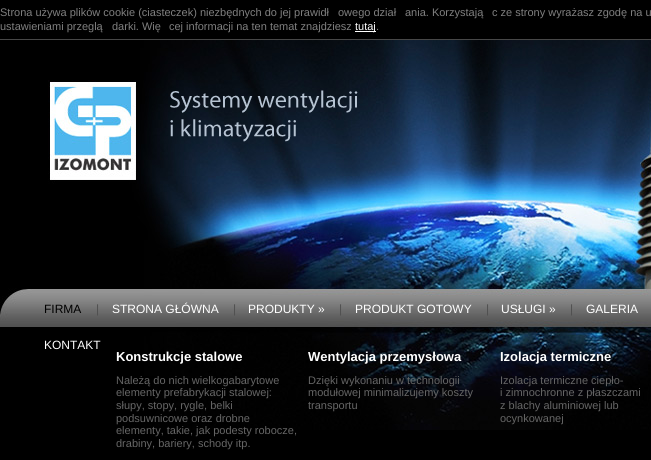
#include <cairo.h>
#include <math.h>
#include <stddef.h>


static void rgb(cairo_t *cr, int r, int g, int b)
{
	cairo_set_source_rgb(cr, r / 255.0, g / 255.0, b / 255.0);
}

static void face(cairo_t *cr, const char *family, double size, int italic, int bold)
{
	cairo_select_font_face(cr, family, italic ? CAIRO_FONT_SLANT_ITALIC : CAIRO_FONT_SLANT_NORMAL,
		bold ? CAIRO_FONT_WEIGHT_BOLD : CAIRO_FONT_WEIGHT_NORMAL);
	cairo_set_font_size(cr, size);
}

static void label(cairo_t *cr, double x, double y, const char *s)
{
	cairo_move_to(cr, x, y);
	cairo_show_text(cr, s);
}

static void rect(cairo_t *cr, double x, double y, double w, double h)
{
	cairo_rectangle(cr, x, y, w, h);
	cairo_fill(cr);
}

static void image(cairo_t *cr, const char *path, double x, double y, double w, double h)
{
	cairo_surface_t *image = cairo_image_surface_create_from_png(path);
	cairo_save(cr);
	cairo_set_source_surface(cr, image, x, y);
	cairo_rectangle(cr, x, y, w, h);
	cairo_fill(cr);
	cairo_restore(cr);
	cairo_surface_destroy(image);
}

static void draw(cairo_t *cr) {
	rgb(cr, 0, 0, 0);
	cairo_paint(cr);
	rgb(cr, 71, 71, 71);
	rect(cr, 0, 39, 651, 1);
	face(cr, "Liberation Sans", 11, 0, 0);
	rgb(cr, 128, 128, 128);
	label(cr, 0, 16, "Strona używa plików cookie (ciasteczek) niezbędnych do jej prawidł");
	label(cr, 338, 16, "owego dział");
	label(cr, 405, 16, "ania. Korzystają");
	label(cr, 492, 16, "c ze strony wyrażasz zgodę na u");
	label(cr, 0, 30, "ustawieniami przeglą");
	label(cr, 112, 30, "darki. Wię");
	label(cr, 169, 30, "cej informacji na ten temat znajdziesz");
	rgb(cr, 255, 255, 255);
	rect(cr, 355, 31, 21, 1);
	label(cr, 355, 30, "tutaj");
	rgb(cr, 128, 128, 128);
	label(cr, 376, 30, ".");
	image(cr, "image0.png", 0, 40, 651, 390);
	image(cr, "image1.png", 170, 90, 188, 52);
	face(cr, "Liberation Sans", 12, 0, 0);
	rgb(cr, 0, 0, 0);
	label(cr, 44, 313, "FIRMA");
	rgb(cr, 79, 79, 79);
	label(cr, 96, 313, "|");
	rgb(cr, 255, 255, 255);
	label(cr, 112, 313, "STRONA GŁÓWNA");
	rgb(cr, 79, 79, 79);
	label(cr, 233, 313, "|");
	rgb(cr, 255, 255, 255);
	label(cr, 248, 313, "PRODUKTY »");
	rgb(cr, 79, 79, 79);
	label(cr, 339, 313, "|");
	rgb(cr, 255, 255, 255);
	label(cr, 355, 313, "PRODUKT GOTOWY");
	rgb(cr, 79, 79, 79);
	label(cr, 486, 313, "|");
	rgb(cr, 255, 255, 255);
	label(cr, 501, 313, "USŁUGI »");
	rgb(cr, 79, 79, 79);
	label(cr, 570, 313, "|");
	rgb(cr, 255, 255, 255);
	label(cr, 586, 313, "GALERIA");
	label(cr, 44, 349, "KONTAKT");
	face(cr, "Liberation Sans", 13, 0, 1);
	label(cr, 116, 361, "Konstrukcje stalowe");
	face(cr, "Liberation Sans", 11, 0, 0);
	rgb(cr, 102, 102, 102);
	label(cr, 116, 384, "Należą do nich wielkogabarytowe");
	label(cr, 116, 396, "elementy prefabrykacji stalowej:");
	label(cr, 116, 409, "słupy, stopy, rygle, belki");
	label(cr, 116, 422, "podsuwnicowe oraz drobne");
	label(cr, 116, 434, "elementy, takie, jak podesty robocze,");
	label(cr, 116, 447, "drabiny, bariery, schody itp.");
	face(cr, "Liberation Sans", 13, 0, 1);
	rgb(cr, 255, 255, 255);
	label(cr, 308, 361, "Wentylacja przemysłowa");
	face(cr, "Liberation Sans", 11, 0, 0);
	rgb(cr, 102, 102, 102);
	label(cr, 308, 384, "Dzięki wykonaniu w technologii");
	label(cr, 308, 396, "modułowej minimalizujemy koszty");
	label(cr, 308, 409, "transportu");
	face(cr, "Liberation Sans", 13, 0, 1);
	rgb(cr, 255, 255, 255);
	label(cr, 500, 361, "Izolacja termiczne");
	face(cr, "Liberation Sans", 11, 0, 0);
	rgb(cr, 102, 102, 102);
	label(cr, 500, 384, "Izolacja termiczne ciepło-");
	label(cr, 500, 396, "i zimnochronne z płaszczami");
	label(cr, 500, 409, "z blachy aluminiowej lub");
	label(cr, 500, 422, "ocynkowanej");
}

int main(void) {
	cairo_surface_t *surface = cairo_image_surface_create(CAIRO_FORMAT_RGB24, 651, 460);
	cairo_t *cr = cairo_create(surface);
	cairo_font_options_t *options = cairo_font_options_create();
	cairo_font_options_set_hint_metrics(options, CAIRO_HINT_METRICS_OFF);
	cairo_font_options_set_hint_style(options, CAIRO_HINT_STYLE_NONE);
	cairo_set_font_options(cr, options);
	cairo_set_miter_limit(cr, 4);
	draw(cr);
	cairo_surface_write_to_png(surface, "render.png");
	cairo_font_options_destroy(options);
	cairo_destroy(cr);
	cairo_surface_destroy(surface);
	return 0;
}
